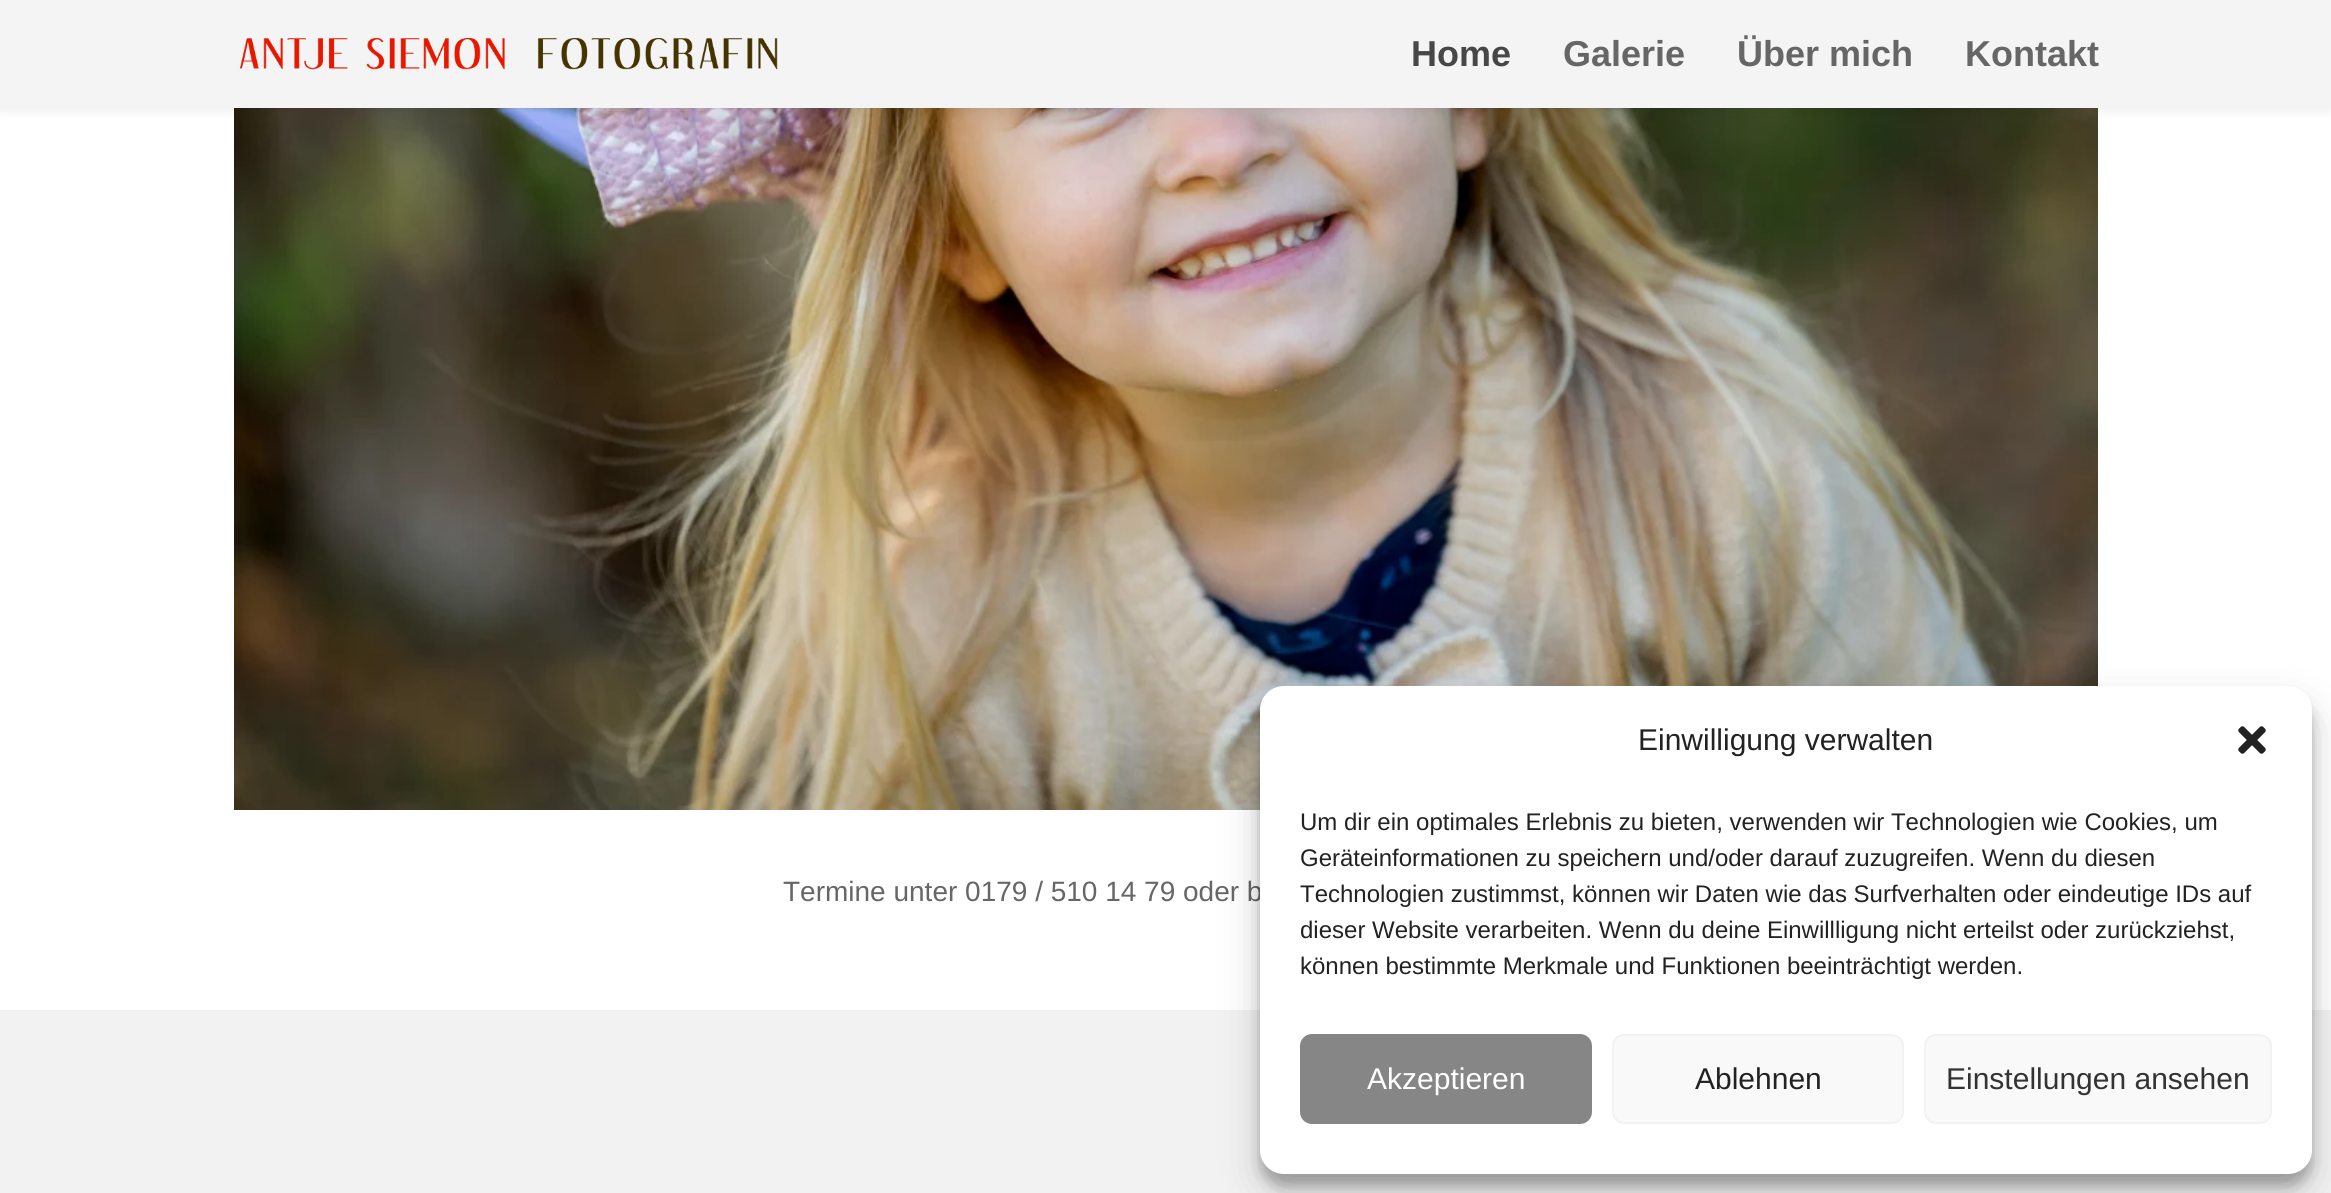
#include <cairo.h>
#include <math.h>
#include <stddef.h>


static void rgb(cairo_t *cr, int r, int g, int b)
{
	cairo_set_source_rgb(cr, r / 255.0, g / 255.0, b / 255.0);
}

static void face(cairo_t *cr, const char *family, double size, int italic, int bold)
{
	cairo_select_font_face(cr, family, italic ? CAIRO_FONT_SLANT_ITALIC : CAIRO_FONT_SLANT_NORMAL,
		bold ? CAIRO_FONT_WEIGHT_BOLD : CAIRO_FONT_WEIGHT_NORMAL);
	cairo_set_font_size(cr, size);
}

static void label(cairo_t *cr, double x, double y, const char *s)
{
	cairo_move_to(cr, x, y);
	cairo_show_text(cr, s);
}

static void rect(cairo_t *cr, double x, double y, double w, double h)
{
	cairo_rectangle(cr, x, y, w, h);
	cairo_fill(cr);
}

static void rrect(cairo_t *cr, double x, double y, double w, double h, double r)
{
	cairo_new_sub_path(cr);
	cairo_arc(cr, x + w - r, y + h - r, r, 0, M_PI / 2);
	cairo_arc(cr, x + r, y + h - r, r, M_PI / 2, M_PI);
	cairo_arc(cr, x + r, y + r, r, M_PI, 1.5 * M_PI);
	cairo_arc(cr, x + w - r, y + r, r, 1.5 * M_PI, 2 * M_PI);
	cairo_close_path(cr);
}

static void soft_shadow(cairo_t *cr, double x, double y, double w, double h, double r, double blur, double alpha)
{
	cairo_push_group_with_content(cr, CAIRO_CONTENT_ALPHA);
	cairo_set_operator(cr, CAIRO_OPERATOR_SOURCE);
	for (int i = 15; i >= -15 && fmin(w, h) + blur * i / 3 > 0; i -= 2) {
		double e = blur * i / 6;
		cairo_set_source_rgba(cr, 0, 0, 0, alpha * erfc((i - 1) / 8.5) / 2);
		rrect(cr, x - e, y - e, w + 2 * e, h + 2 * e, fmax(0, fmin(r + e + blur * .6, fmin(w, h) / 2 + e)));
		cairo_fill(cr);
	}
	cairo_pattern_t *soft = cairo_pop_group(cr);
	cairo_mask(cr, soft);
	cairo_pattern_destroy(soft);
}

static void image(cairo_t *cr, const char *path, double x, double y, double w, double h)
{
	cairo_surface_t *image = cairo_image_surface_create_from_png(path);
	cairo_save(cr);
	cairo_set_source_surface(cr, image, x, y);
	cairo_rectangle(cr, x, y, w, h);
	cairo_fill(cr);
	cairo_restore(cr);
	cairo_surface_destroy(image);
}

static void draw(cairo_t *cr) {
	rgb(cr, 255, 255, 255);
	cairo_paint(cr);
	image(cr, "image1.png", 234, 108, 1864, 702);
	rgb(cr, 0, 0, 0);
	soft_shadow(cr, 0, 0, 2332, 108, 0, 7, 0.1);
	rgb(cr, 244, 244, 244);
	rect(cr, 0, 0, 2331, 108);
	image(cr, "image0.png", 240, 38, 538, 32);
	face(cr, "Liberation Sans", 36, 0, 1);
	rgb(cr, 71, 71, 71);
	label(cr, 1411, 66, "Home");
	rgb(cr, 102, 102, 102);
	label(cr, 1563, 66, "Galerie");
	label(cr, 1737, 66, "Über mich");
	label(cr, 1965, 66, "Kontakt");
	face(cr, "Liberation Sans", 28, 0, 0);
	label(cr, 783, 901, "Termine unter 0179 / 510 14 79 oder b");
	rgb(cr, 242, 242, 242);
	rect(cr, 0, 1010, 2331, 183);
	rgb(cr, 0, 0, 0);
	soft_shadow(cr, 1260, 698, 1052, 488, 24, 6, 0.23);
	soft_shadow(cr, 1260, 706, 1052, 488, 24, 20, 0.19);
	rgb(cr, 255, 255, 255);
	rrect(cr, 1260, 686, 1052, 488, 24);
	cairo_fill(cr);
	face(cr, "Liberation Sans", 30, 0, 0);
	rgb(cr, 34, 34, 34);
	label(cr, 1638, 750, "Einwilligung verwalten");
	image(cr, "image2.png", 2238, 726, 28, 28);
	face(cr, "Liberation Sans", 24, 0, 0);
	label(cr, 1300, 830, "Um dir ein optimales Erlebnis zu bieten, verwenden wir Technologien wie Cookies, um");
	label(cr, 1300, 866, "Geräteinformationen zu speichern und/oder darauf zuzugreifen. Wenn du diesen");
	label(cr, 1300, 902, "Technologien zustimmst, können wir Daten wie das Surfverhalten oder eindeutige IDs auf");
	label(cr, 1300, 938, "dieser Website verarbeiten. Wenn du deine Einwillligung nicht erteilst oder zurückziehst,");
	label(cr, 1300, 974, "können bestimmte Merkmale und Funktionen beeinträchtigt werden.");
	rgb(cr, 134, 134, 134);
	rrect(cr, 1301, 1035, 290, 88, 11);
	cairo_fill_preserve(cr);
	cairo_stroke(cr);
	face(cr, "Liberation Sans", 30, 0, 0);
	rgb(cr, 255, 255, 255);
	label(cr, 1367, 1089, "Akzeptieren");
	rgb(cr, 249, 249, 249);
	rrect(cr, 1613, 1035, 290, 88, 11);
	cairo_fill_preserve(cr);
	rgb(cr, 242, 242, 242);
	cairo_stroke(cr);
	rgb(cr, 34, 34, 34);
	label(cr, 1695, 1089, "Ablehnen");
	rgb(cr, 249, 249, 249);
	rrect(cr, 1925, 1035, 346, 88, 11);
	cairo_fill_preserve(cr);
	rgb(cr, 242, 242, 242);
	cairo_stroke(cr);
	rgb(cr, 51, 51, 51);
	label(cr, 1946, 1089, "Einstellungen ansehen");
}

int main(void) {
	cairo_surface_t *surface = cairo_image_surface_create(CAIRO_FORMAT_RGB24, 2331, 1193);
	cairo_t *cr = cairo_create(surface);
	cairo_font_options_t *options = cairo_font_options_create();
	cairo_font_options_set_hint_metrics(options, CAIRO_HINT_METRICS_OFF);
	cairo_font_options_set_hint_style(options, CAIRO_HINT_STYLE_NONE);
	cairo_set_font_options(cr, options);
	cairo_set_miter_limit(cr, 4);
	draw(cr);
	cairo_surface_write_to_png(surface, "render.png");
	cairo_font_options_destroy(options);
	cairo_destroy(cr);
	cairo_surface_destroy(surface);
	return 0;
}
